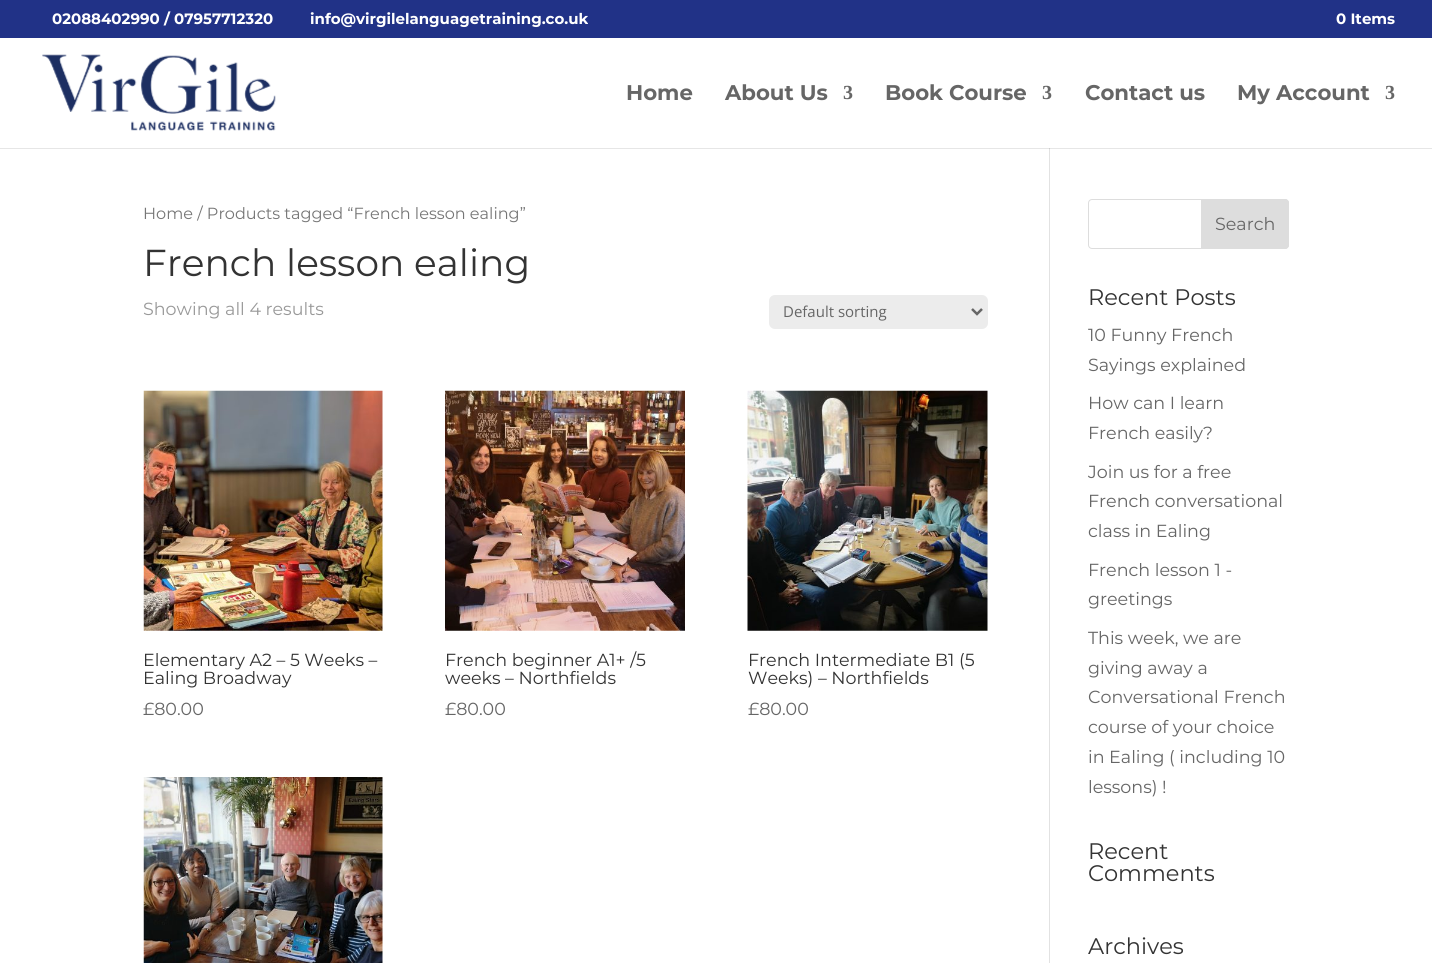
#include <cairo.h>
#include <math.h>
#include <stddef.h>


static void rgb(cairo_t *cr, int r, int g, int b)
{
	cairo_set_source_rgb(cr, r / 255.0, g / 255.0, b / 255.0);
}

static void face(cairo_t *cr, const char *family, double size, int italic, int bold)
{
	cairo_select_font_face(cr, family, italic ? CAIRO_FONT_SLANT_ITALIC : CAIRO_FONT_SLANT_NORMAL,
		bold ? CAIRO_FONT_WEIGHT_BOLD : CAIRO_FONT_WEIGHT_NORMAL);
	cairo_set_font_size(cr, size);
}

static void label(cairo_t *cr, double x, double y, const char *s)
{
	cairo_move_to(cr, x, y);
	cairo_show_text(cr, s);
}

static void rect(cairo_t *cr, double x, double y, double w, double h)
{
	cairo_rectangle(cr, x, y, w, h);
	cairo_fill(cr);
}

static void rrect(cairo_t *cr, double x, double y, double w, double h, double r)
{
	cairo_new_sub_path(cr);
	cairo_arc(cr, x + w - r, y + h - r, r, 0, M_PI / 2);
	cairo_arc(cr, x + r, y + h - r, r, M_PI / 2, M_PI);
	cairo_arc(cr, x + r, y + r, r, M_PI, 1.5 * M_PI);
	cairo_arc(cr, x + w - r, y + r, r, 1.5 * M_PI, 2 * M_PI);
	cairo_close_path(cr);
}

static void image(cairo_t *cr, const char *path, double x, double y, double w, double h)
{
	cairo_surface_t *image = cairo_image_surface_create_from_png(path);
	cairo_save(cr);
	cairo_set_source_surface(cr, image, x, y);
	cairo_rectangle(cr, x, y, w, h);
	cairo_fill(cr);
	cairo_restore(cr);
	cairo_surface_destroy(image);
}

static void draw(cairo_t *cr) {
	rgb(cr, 255, 255, 255);
	cairo_paint(cr);
	rgb(cr, 33, 50, 135);
	rect(cr, 0, 0, 1432, 38);
	face(cr, "Montserrat", 15, 0, 1);
	rgb(cr, 255, 255, 255);
	label(cr, 52, 24, "02088402990 / 07957712320");
	label(cr, 310, 24, "info@virgilelanguagetraining.co.uk");
	label(cr, 1336, 24, "0 Items");
	rgb(cr, 226, 226, 226);
	rect(cr, 1049, 148, 1, 815);
	cairo_set_source_rgba(cr, 0, 0, 0, 0.1);
	cairo_new_path(cr);
	cairo_move_to(cr, 0, 148);
	cairo_line_to(cr, 0, 149);
	cairo_line_to(cr, 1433, 149);
	cairo_line_to(cr, 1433, 39);
	cairo_line_to(cr, 1432, 39);
	cairo_line_to(cr, 1432, 148);
	cairo_close_path(cr);
	cairo_fill(cr);
	image(cr, "image0.png", 42, 54, 234, 77);
	face(cr, "Montserrat", 21.25, 0, 1);
	rgb(cr, 102, 102, 102);
	label(cr, 626, 100, "Home");
	label(cr, 725, 100, "About Us");
	face(cr, "Liberation Serif", 20, 0, 1);
	label(cr, 843, 99, "3");
	face(cr, "Montserrat", 21.25, 0, 1);
	label(cr, 885, 100, "Book Course");
	face(cr, "Liberation Serif", 20, 0, 1);
	label(cr, 1042, 99, "3");
	face(cr, "Montserrat", 21.25, 0, 1);
	label(cr, 1085, 100, "Contact us");
	label(cr, 1237, 100, "My Account");
	face(cr, "Liberation Serif", 20, 0, 1);
	label(cr, 1385, 99, "3");
	face(cr, "Montserrat", 16.1, 0, 0);
	rgb(cr, 118, 118, 118);
	label(cr, 143, 219, "Home / Products tagged “French lesson ealing”");
	face(cr, "Montserrat", 37.5, 0, 0);
	rgb(cr, 51, 51, 51);
	label(cr, 143, 276, "French lesson ealing");
	face(cr, "Montserrat", 17.5, 0, 0);
	rgb(cr, 153, 153, 153);
	label(cr, 143, 315, "Showing all 4 results");
	rgb(cr, 236, 236, 236);
	rrect(cr, 769, 295, 219, 34, 6);
	cairo_fill(cr);
	cairo_new_path(cr);
	cairo_move_to(cr, 972, 309);
	cairo_line_to(cr, 977, 314);
	cairo_line_to(cr, 982, 309);
	rgb(cr, 102, 102, 102);
	cairo_set_line_width(cr, 2.5);
	cairo_stroke(cr);
	face(cr, "Open Sans", 15, 0, 0);
	label(cr, 783, 317, "Default sorting");
	image(cr, "image1.png", 143, 390, 240, 241);
	face(cr, "Montserrat", 17.5, 0, 0);
	rgb(cr, 51, 51, 51);
	label(cr, 143, 666, "Elementary A2 – 5 Weeks –");
	label(cr, 143, 684, "Ealing Broadway");
	rgb(cr, 102, 102, 102);
	label(cr, 143, 715, "£80.00");
	image(cr, "image2.png", 445, 390, 240, 241);
	rgb(cr, 51, 51, 51);
	label(cr, 445, 666, "French beginner A1+ /5");
	label(cr, 445, 684, "weeks – Northfields");
	rgb(cr, 102, 102, 102);
	label(cr, 445, 715, "£80.00");
	image(cr, "image3.png", 747, 390, 241, 241);
	rgb(cr, 51, 51, 51);
	label(cr, 748, 666, "French Intermediate B1 (5");
	label(cr, 748, 684, "Weeks) – Northfields");
	rgb(cr, 102, 102, 102);
	label(cr, 748, 715, "£80.00");
	image(cr, "image4.png", 143, 777, 240, 186);
	rrect(cr, 1088.5, 199.5, 200, 49, 3.5);
	rgb(cr, 221, 221, 221);
	cairo_set_line_width(cr, 1);
	cairo_stroke(cr);
	cairo_new_path(cr);
	cairo_move_to(cr, 1201.5, 199.5);
	cairo_line_to(cr, 1285, 199.5);
	cairo_curve_to(cr, 1287, 199.5, 1288.5, 201, 1288.5, 203);
	cairo_line_to(cr, 1288.5, 245);
	cairo_curve_to(cr, 1288.5, 247, 1287, 248.5, 1285, 248.5);
	cairo_line_to(cr, 1201.5, 248.5);
	cairo_close_path(cr);
	cairo_fill_preserve(cr);
	cairo_stroke(cr);
	rgb(cr, 102, 102, 102);
	label(cr, 1215, 230, "Search");
	face(cr, "Montserrat", 22.5, 0, 0);
	rgb(cr, 51, 51, 51);
	label(cr, 1088, 305, "Recent Posts");
	face(cr, "Montserrat", 17.5, 0, 0);
	rgb(cr, 102, 102, 102);
	label(cr, 1088, 341, "10 Funny French");
	label(cr, 1088, 371, "Sayings explained");
	label(cr, 1088, 409, "How can I learn");
	label(cr, 1088, 439, "French easily?");
	label(cr, 1088, 478, "Join us for a free");
	label(cr, 1088, 507, "French conversational");
	label(cr, 1088, 537, "class in Ealing");
	label(cr, 1088, 576, "French lesson 1 -");
	label(cr, 1088, 605, "greetings");
	label(cr, 1088, 644, "This week, we are");
	label(cr, 1088, 674, "giving away a");
	label(cr, 1088, 703, "Conversational French");
	label(cr, 1088, 733, "course of your choice");
	label(cr, 1088, 763, "in Ealing ( including 10");
	label(cr, 1088, 793, "lessons) !");
	face(cr, "Montserrat", 22.5, 0, 0);
	rgb(cr, 51, 51, 51);
	label(cr, 1088, 859, "Recent");
	label(cr, 1088, 881, "Comments");
	label(cr, 1088, 954, "Archives");
}

int main(void) {
	cairo_surface_t *surface = cairo_image_surface_create(CAIRO_FORMAT_RGB24, 1432, 963);
	cairo_t *cr = cairo_create(surface);
	cairo_font_options_t *options = cairo_font_options_create();
	cairo_font_options_set_hint_metrics(options, CAIRO_HINT_METRICS_OFF);
	cairo_font_options_set_hint_style(options, CAIRO_HINT_STYLE_NONE);
	cairo_set_font_options(cr, options);
	cairo_set_miter_limit(cr, 4);
	draw(cr);
	cairo_surface_write_to_png(surface, "render.png");
	cairo_font_options_destroy(options);
	cairo_destroy(cr);
	cairo_surface_destroy(surface);
	return 0;
}
